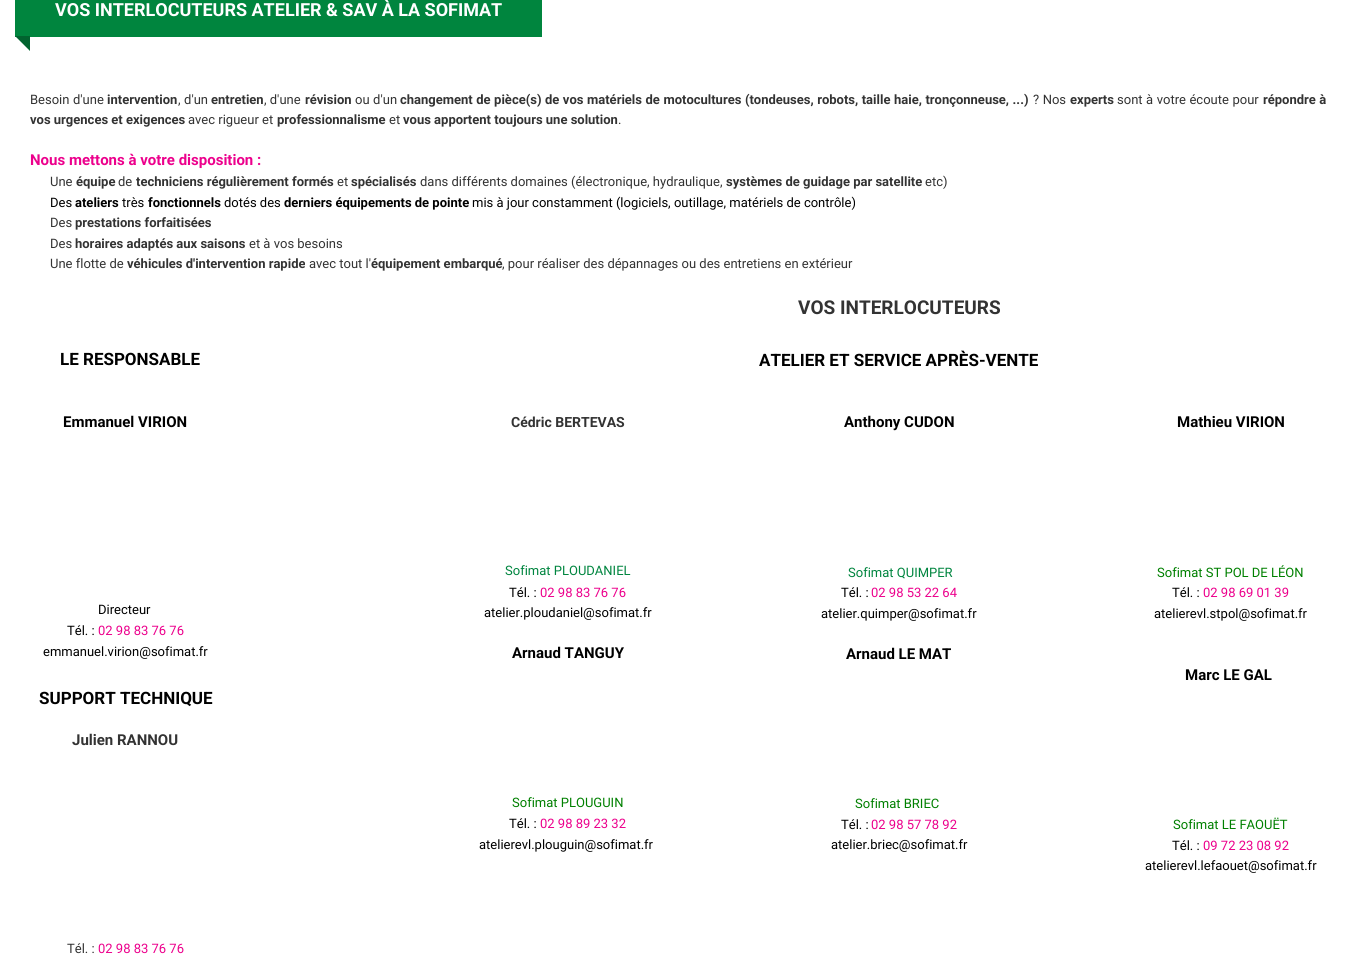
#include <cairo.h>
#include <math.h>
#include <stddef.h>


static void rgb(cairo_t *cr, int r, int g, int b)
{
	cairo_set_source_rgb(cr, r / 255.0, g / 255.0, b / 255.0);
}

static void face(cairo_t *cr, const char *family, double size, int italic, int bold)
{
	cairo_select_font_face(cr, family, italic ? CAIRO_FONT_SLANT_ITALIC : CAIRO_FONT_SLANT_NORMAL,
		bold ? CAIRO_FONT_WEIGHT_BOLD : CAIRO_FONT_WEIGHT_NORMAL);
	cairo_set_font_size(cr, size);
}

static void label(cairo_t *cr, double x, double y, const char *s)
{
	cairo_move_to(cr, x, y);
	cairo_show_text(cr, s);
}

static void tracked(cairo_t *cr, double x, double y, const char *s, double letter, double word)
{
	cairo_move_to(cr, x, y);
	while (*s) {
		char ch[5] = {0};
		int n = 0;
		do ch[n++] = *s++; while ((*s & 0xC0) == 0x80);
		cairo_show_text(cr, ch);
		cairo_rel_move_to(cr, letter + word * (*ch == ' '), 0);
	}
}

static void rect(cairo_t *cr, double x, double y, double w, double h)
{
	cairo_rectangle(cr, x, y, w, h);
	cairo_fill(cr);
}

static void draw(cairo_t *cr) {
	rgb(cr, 255, 255, 255);
	cairo_paint(cr);
	rgb(cr, 0, 133, 62);
	rect(cr, 15, 0, 527, 37);
	face(cr, "Roboto", 18, 0, 1);
	rgb(cr, 255, 255, 255);
	label(cr, 55, 16, "VOS INTERLOCUTEURS ATELIER & SAV À LA SOFIMAT");
	rgb(cr, 1, 99, 47);
	cairo_new_path(cr);
	cairo_move_to(cr, 30, 36);
	cairo_line_to(cr, 30, 51);
	cairo_line_to(cr, 15, 36);
	cairo_close_path(cr);
	cairo_fill(cr);
	face(cr, "Roboto", 13, 0, 0);
	rgb(cr, 51, 51, 51);
	tracked(cr, 30, 104, "Besoin d'une", 0, 0.3);
	face(cr, "Roboto", 13, 0, 1);
	label(cr, 107, 104, "intervention");
	face(cr, "Roboto", 13, 0, 0);
	tracked(cr, 178, 104, ", d'un", 0, 0.3);
	face(cr, "Roboto", 13, 0, 1);
	label(cr, 211, 104, "entretien");
	face(cr, "Roboto", 13, 0, 0);
	label(cr, 264, 104, ", d'une");
	face(cr, "Roboto", 13, 0, 1);
	label(cr, 305, 104, "révision");
	face(cr, "Roboto", 13, 0, 0);
	tracked(cr, 355, 104, "ou d'un", 0, 0.3);
	face(cr, "Roboto", 13, 0, 1);
	tracked(cr, 400, 104, "changement de pièce(s) de vos matériels de motocultures (tondeuses, robots, taille haie, tronçonneuse, ...)", 0, 0.3);
	face(cr, "Roboto", 13, 0, 0);
	tracked(cr, 1033, 104, "? Nos", 0, 0.3);
	face(cr, "Roboto", 13, 0, 1);
	label(cr, 1070, 104, "experts");
	face(cr, "Roboto", 13, 0, 0);
	tracked(cr, 1117, 104, "sont à votre écoute pour", 0, 0.3);
	face(cr, "Roboto", 13, 0, 1);
	tracked(cr, 1263, 104, "répondre à", 0, 0.3);
	label(cr, 30, 124, "vos urgences et exigences");
	face(cr, "Roboto", 13, 0, 0);
	label(cr, 188, 124, "avec rigueur et");
	face(cr, "Roboto", 13, 0, 1);
	label(cr, 277, 124, "professionnalisme");
	face(cr, "Roboto", 13, 0, 0);
	label(cr, 389, 124, "et");
	face(cr, "Roboto", 13, 0, 1);
	label(cr, 403, 124, "vous apportent toujours une solution");
	face(cr, "Roboto", 13, 0, 0);
	label(cr, 618, 124, ".");
	face(cr, "Roboto", 15, 0, 1);
	rgb(cr, 236, 0, 140);
	label(cr, 30, 165, "Nous mettons à votre disposition :");
	face(cr, "Roboto", 13, 0, 0);
	rgb(cr, 51, 51, 51);
	label(cr, 50, 186, "Une");
	face(cr, "Roboto", 13, 0, 1);
	label(cr, 76, 186, "équipe");
	face(cr, "Roboto", 13, 0, 0);
	label(cr, 118, 186, "de");
	face(cr, "Roboto", 13, 0, 1);
	label(cr, 136, 186, "techniciens régulièrement formés");
	face(cr, "Roboto", 13, 0, 0);
	label(cr, 337, 186, "et");
	face(cr, "Roboto", 13, 0, 1);
	label(cr, 351, 186, "spécialisés");
	face(cr, "Roboto", 13, 0, 0);
	label(cr, 420, 186, "dans différents domaines (électronique, hydraulique,");
	face(cr, "Roboto", 13, 0, 1);
	label(cr, 726, 186, "systèmes de guidage par satellite");
	face(cr, "Roboto", 13, 0, 0);
	label(cr, 925, 186, "etc)");
	rgb(cr, 0, 0, 0);
	label(cr, 50, 207, "Des");
	face(cr, "Roboto", 13, 0, 1);
	label(cr, 75, 207, "ateliers");
	face(cr, "Roboto", 13, 0, 0);
	label(cr, 122, 207, "très");
	face(cr, "Roboto", 13, 0, 1);
	label(cr, 148, 207, "fonctionnels");
	face(cr, "Roboto", 13, 0, 0);
	label(cr, 224, 207, "dotés des");
	face(cr, "Roboto", 13, 0, 1);
	label(cr, 284, 207, "derniers équipements de pointe");
	face(cr, "Roboto", 13, 0, 0);
	label(cr, 472, 207, "mis à jour constamment (logiciels, outillage, matériels de contrôle)");
	rgb(cr, 51, 51, 51);
	label(cr, 50, 227, "Des");
	face(cr, "Roboto", 13, 0, 1);
	label(cr, 75, 227, "prestations forfaitisées");
	face(cr, "Roboto", 13, 0, 0);
	label(cr, 50, 248, "Des");
	face(cr, "Roboto", 13, 0, 1);
	label(cr, 75, 248, "horaires adaptés aux saisons");
	face(cr, "Roboto", 13, 0, 0);
	label(cr, 249, 248, "et à vos besoins");
	label(cr, 50, 268, "Une flotte de");
	face(cr, "Roboto", 13, 0, 1);
	label(cr, 127, 268, "véhicules d'intervention rapide");
	face(cr, "Roboto", 13, 0, 0);
	label(cr, 309, 268, "avec tout l'");
	face(cr, "Roboto", 13, 0, 1);
	label(cr, 371, 268, "équipement embarqué");
	face(cr, "Roboto", 13, 0, 0);
	label(cr, 502, 268, ", pour réaliser des dépannages ou des entretiens en extérieur");
	face(cr, "Roboto", 17, 0, 1);
	rgb(cr, 0, 0, 0);
	label(cr, 60, 365, "LE RESPONSABLE");
	face(cr, "Roboto", 19, 0, 1);
	rgb(cr, 51, 51, 51);
	label(cr, 798, 314, "VOS INTERLOCUTEURS");
	face(cr, "Roboto", 17, 0, 1);
	rgb(cr, 0, 0, 0);
	label(cr, 759, 366, "ATELIER ET SERVICE APRÈS-VENTE");
	face(cr, "Roboto", 15, 0, 1);
	label(cr, 63, 427, "Emmanuel VIRION");
	face(cr, "Roboto", 13, 0, 0);
	label(cr, 98, 614, "Directeur");
	label(cr, 67, 635, "Tél. :");
	rgb(cr, 236, 0, 140);
	label(cr, 98, 635, "02 98 83 76 76");
	rgb(cr, 0, 0, 0);
	label(cr, 43, 656, "emmanuel.virion@sofimat.fr");
	face(cr, "Roboto", 17, 0, 1);
	label(cr, 39, 704, "SUPPORT TECHNIQUE");
	face(cr, "Roboto", 15, 0, 1);
	rgb(cr, 51, 51, 51);
	label(cr, 72, 745, "Julien RANNOU");
	face(cr, "Roboto", 13, 0, 0);
	label(cr, 67, 953, "Tél. :");
	rgb(cr, 236, 0, 140);
	label(cr, 98, 953, "02 98 83 76 76");
	face(cr, "Roboto", 14, 0, 1);
	rgb(cr, 51, 51, 51);
	label(cr, 511, 427, "Cédric BERTEVAS");
	face(cr, "Roboto", 13, 0, 0);
	rgb(cr, 0, 133, 63);
	label(cr, 505, 575, "Sofimat PLOUDANIEL");
	rgb(cr, 0, 0, 0);
	label(cr, 509, 597, "Tél. :");
	rgb(cr, 236, 0, 140);
	label(cr, 540, 597, "02 98 83 76 76");
	rgb(cr, 0, 0, 0);
	label(cr, 484, 617, "atelier.ploudaniel@sofimat.fr");
	face(cr, "Roboto", 15, 0, 1);
	label(cr, 512, 658, "Arnaud TANGUY");
	face(cr, "Roboto", 13, 0, 0);
	rgb(cr, 0, 128, 0);
	label(cr, 512, 807, "Sofimat PLOUGUIN");
	rgb(cr, 0, 0, 0);
	label(cr, 509, 828, "Tél. :");
	rgb(cr, 236, 0, 140);
	label(cr, 540, 828, "02 98 89 23 32");
	rgb(cr, 0, 0, 0);
	label(cr, 479, 849, "atelierevl.plouguin@sofimat.fr");
	face(cr, "Roboto", 15, 0, 1);
	label(cr, 844, 427, "Anthony CUDON");
	face(cr, "Roboto", 13, 0, 0);
	rgb(cr, 0, 133, 63);
	label(cr, 848, 577, "Sofimat QUIMPER");
	rgb(cr, 0, 0, 0);
	label(cr, 841, 597, "Tél. :");
	rgb(cr, 236, 0, 140);
	label(cr, 871, 597, "02 98 53 22 64");
	rgb(cr, 0, 0, 0);
	label(cr, 821, 618, "atelier.quimper@sofimat.fr");
	face(cr, "Roboto", 15, 0, 1);
	label(cr, 846, 659, "Arnaud LE MAT");
	face(cr, "Roboto", 13, 0, 0);
	rgb(cr, 0, 128, 0);
	label(cr, 855, 808, "Sofimat BRIEC");
	rgb(cr, 0, 0, 0);
	label(cr, 841, 829, "Tél. :");
	rgb(cr, 236, 0, 140);
	label(cr, 871, 829, "02 98 57 78 92");
	rgb(cr, 0, 0, 0);
	label(cr, 831, 849, "atelier.briec@sofimat.fr");
	face(cr, "Roboto", 15, 0, 1);
	label(cr, 1177, 427, "Mathieu VIRION");
	face(cr, "Roboto", 13, 0, 0);
	rgb(cr, 0, 128, 0);
	label(cr, 1157, 577, "Sofimat ST POL DE LÉON");
	rgb(cr, 0, 0, 0);
	label(cr, 1172, 597, "Tél. :");
	rgb(cr, 236, 0, 140);
	label(cr, 1203, 597, "02 98 69 01 39");
	rgb(cr, 0, 0, 0);
	label(cr, 1154, 618, "atelierevl.stpol@sofimat.fr");
	face(cr, "Roboto", 15, 0, 1);
	label(cr, 1185, 680, "Marc LE GAL");
	face(cr, "Roboto", 13, 0, 0);
	rgb(cr, 0, 128, 0);
	label(cr, 1173, 829, "Sofimat LE FAOUËT");
	rgb(cr, 0, 0, 0);
	label(cr, 1172, 850, "Tél. :");
	rgb(cr, 236, 0, 140);
	label(cr, 1203, 850, "09 72 23 08 92");
	rgb(cr, 0, 0, 0);
	label(cr, 1145, 870, "atelierevl.lefaouet@sofimat.fr");
}

int main(void) {
	cairo_surface_t *surface = cairo_image_surface_create(CAIRO_FORMAT_RGB24, 1356, 968);
	cairo_t *cr = cairo_create(surface);
	cairo_font_options_t *options = cairo_font_options_create();
	cairo_font_options_set_hint_metrics(options, CAIRO_HINT_METRICS_OFF);
	cairo_font_options_set_hint_style(options, CAIRO_HINT_STYLE_NONE);
	cairo_set_font_options(cr, options);
	cairo_set_miter_limit(cr, 4);
	draw(cr);
	cairo_surface_write_to_png(surface, "render.png");
	cairo_font_options_destroy(options);
	cairo_destroy(cr);
	cairo_surface_destroy(surface);
	return 0;
}
